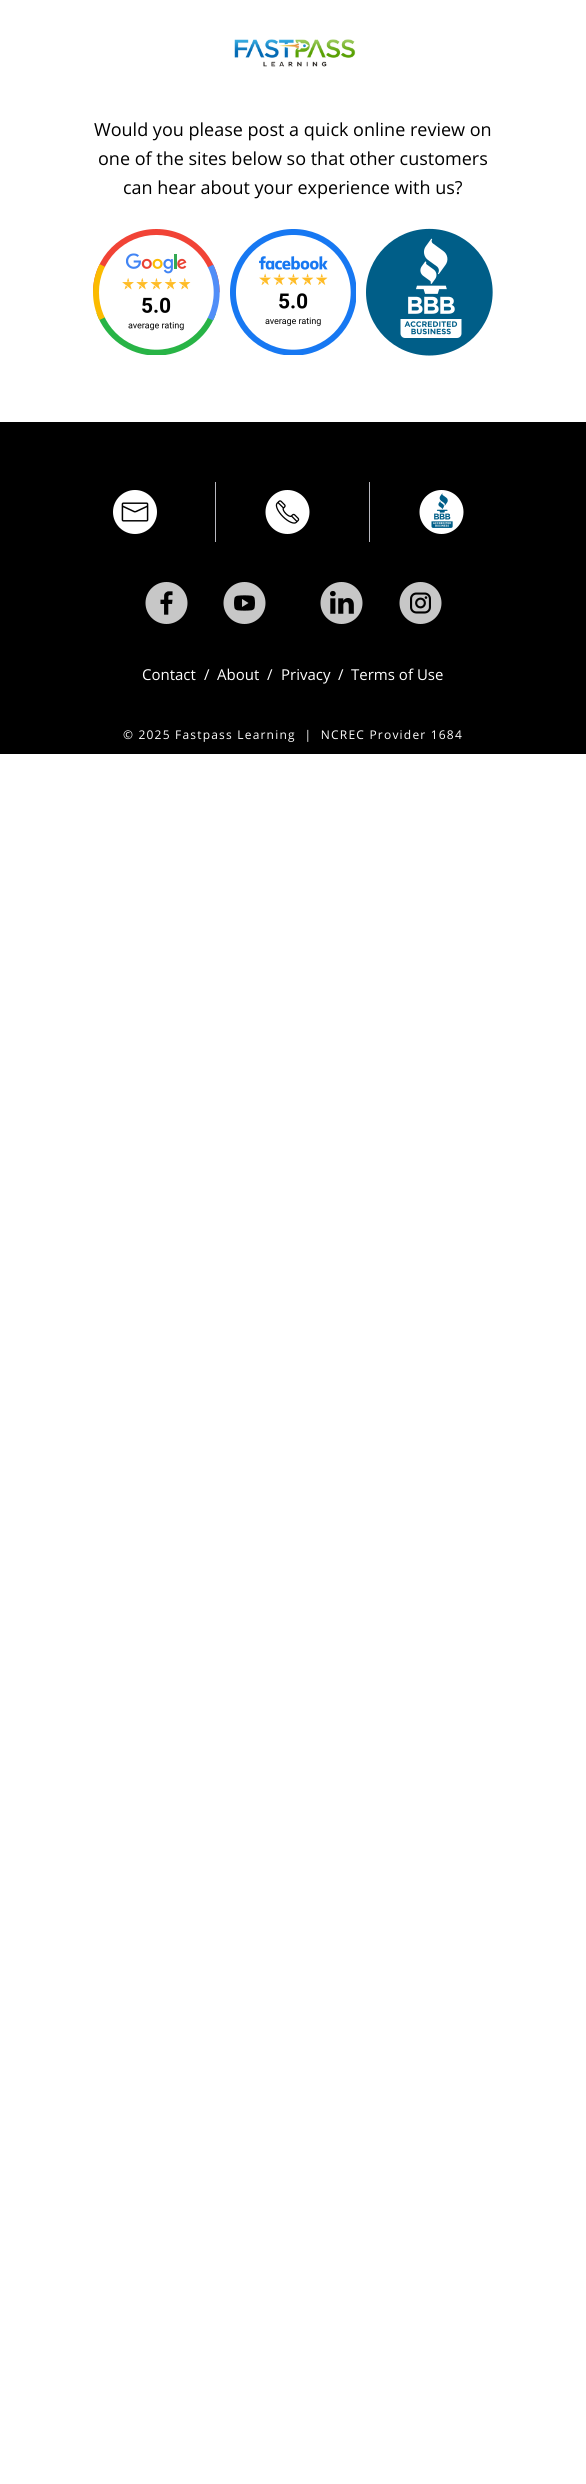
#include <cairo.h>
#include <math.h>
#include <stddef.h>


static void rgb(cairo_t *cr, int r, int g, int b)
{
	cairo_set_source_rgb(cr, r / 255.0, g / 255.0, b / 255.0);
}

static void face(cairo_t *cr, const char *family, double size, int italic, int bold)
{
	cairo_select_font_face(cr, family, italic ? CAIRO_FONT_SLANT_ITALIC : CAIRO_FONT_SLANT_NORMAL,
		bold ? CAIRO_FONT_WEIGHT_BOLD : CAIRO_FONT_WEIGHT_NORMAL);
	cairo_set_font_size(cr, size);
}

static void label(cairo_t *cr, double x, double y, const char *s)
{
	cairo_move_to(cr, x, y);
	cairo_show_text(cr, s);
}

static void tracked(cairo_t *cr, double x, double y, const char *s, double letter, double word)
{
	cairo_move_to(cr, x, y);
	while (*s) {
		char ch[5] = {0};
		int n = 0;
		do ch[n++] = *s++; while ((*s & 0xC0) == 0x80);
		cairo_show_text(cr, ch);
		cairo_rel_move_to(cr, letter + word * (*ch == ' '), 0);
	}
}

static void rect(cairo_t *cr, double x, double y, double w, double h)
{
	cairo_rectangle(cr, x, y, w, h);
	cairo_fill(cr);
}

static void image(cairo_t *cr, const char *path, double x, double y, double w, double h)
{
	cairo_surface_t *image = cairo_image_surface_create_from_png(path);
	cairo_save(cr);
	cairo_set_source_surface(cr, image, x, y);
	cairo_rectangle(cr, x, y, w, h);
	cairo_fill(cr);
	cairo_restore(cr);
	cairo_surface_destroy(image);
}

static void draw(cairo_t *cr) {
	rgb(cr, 255, 255, 255);
	cairo_paint(cr);
	image(cr, "image0.png", 234, 39, 122, 28);
	face(cr, "Open Sans", 18, 0, 0);
	rgb(cr, 0, 0, 0);
	label(cr, 94, 136, "Would you please post a quick online review on");
	label(cr, 98, 165, "one of the sites below so that other customers");
	label(cr, 123, 194, "can hear about your experience with us?");
	image(cr, "image1.png", 93, 229, 127, 126);
	image(cr, "image2.png", 230, 229, 126, 126);
	image(cr, "image3.png", 366, 228, 127, 128);
	rect(cr, 0, 422, 586, 332);
	image(cr, "image4.png", 113, 490, 44, 44);
	rgb(cr, 183, 183, 191);
	rect(cr, 215, 482, 1, 60);
	image(cr, "image5.png", 265, 490, 45, 44);
	rect(cr, 369, 482, 1, 60);
	image(cr, "image6.png", 419, 490, 45, 44);
	image(cr, "image7.png", 145, 582, 43, 42);
	image(cr, "image8.png", 223, 582, 43, 42);
	image(cr, "image9.png", 320, 582, 43, 42);
	image(cr, "image10.png", 399, 582, 43, 42);
	face(cr, "Open Sans", 15, 0, 0);
	rgb(cr, 255, 255, 255);
	label(cr, 142, 680, "Contact");
	label(cr, 204, 680, "/");
	label(cr, 217, 680, "About");
	label(cr, 267, 680, "/");
	label(cr, 281, 680, "Privacy");
	label(cr, 338, 680, "/");
	label(cr, 351, 680, "Terms of Use");
	face(cr, "Open Sans", 12, 0, 0);
	tracked(cr, 123, 739, "© 2025 Fastpass Learning  |  NCREC Provider 1684", 1.2, 0);
}

int main(void) {
	cairo_surface_t *surface = cairo_image_surface_create(CAIRO_FORMAT_RGB24, 586, 2484);
	cairo_t *cr = cairo_create(surface);
	cairo_font_options_t *options = cairo_font_options_create();
	cairo_font_options_set_hint_metrics(options, CAIRO_HINT_METRICS_OFF);
	cairo_font_options_set_hint_style(options, CAIRO_HINT_STYLE_NONE);
	cairo_set_font_options(cr, options);
	cairo_set_miter_limit(cr, 4);
	draw(cr);
	cairo_surface_write_to_png(surface, "render.png");
	cairo_font_options_destroy(options);
	cairo_destroy(cr);
	cairo_surface_destroy(surface);
	return 0;
}
